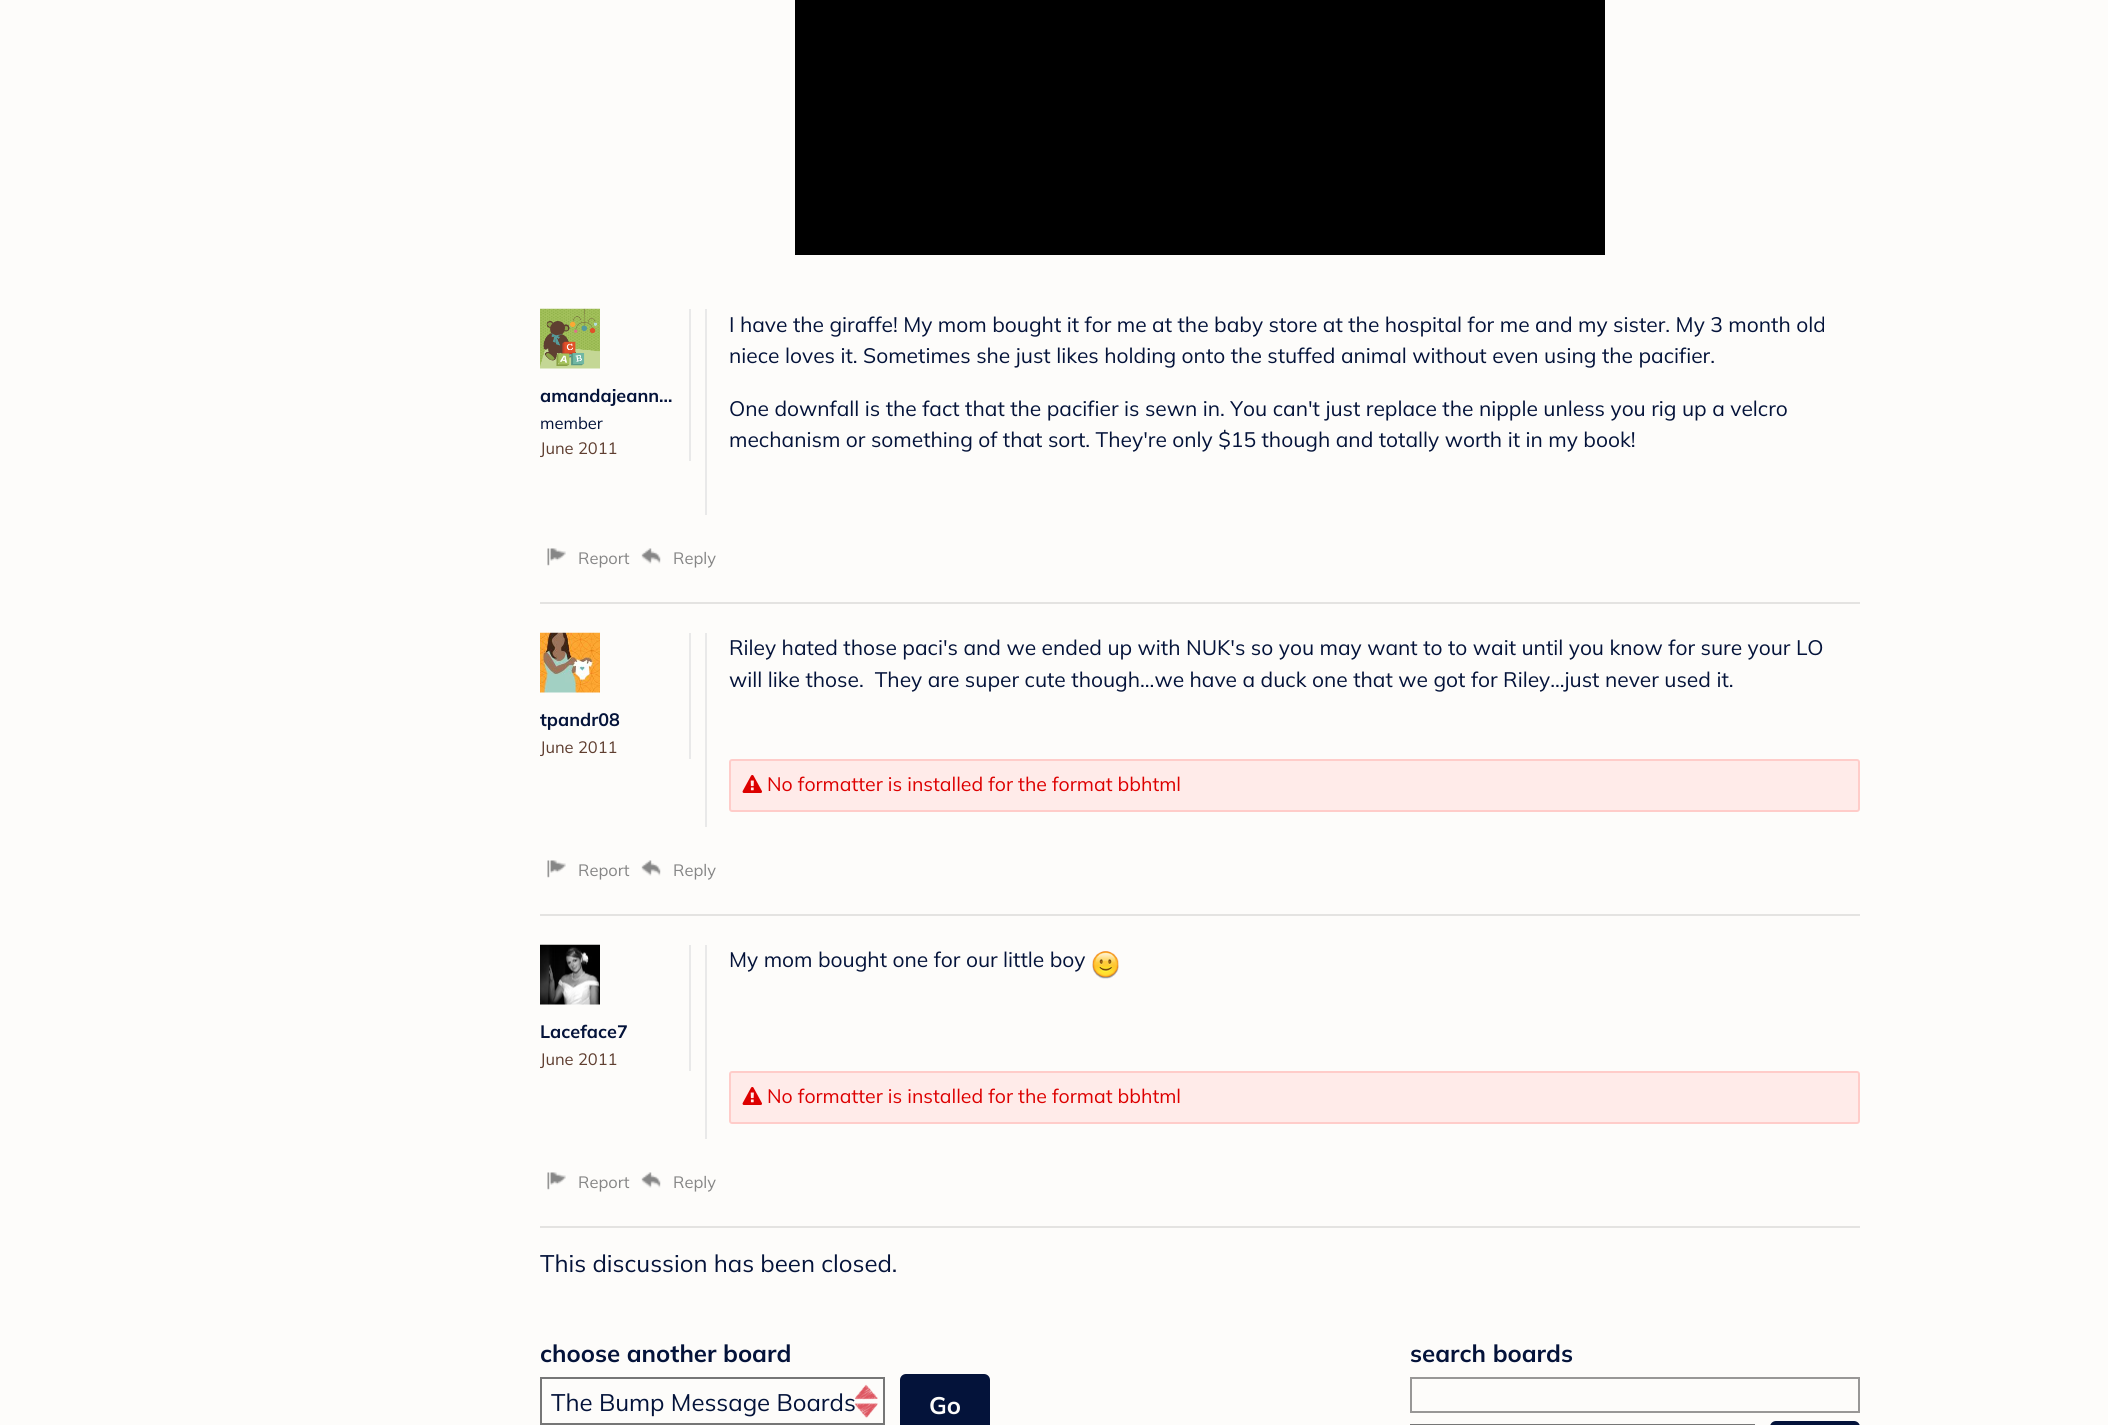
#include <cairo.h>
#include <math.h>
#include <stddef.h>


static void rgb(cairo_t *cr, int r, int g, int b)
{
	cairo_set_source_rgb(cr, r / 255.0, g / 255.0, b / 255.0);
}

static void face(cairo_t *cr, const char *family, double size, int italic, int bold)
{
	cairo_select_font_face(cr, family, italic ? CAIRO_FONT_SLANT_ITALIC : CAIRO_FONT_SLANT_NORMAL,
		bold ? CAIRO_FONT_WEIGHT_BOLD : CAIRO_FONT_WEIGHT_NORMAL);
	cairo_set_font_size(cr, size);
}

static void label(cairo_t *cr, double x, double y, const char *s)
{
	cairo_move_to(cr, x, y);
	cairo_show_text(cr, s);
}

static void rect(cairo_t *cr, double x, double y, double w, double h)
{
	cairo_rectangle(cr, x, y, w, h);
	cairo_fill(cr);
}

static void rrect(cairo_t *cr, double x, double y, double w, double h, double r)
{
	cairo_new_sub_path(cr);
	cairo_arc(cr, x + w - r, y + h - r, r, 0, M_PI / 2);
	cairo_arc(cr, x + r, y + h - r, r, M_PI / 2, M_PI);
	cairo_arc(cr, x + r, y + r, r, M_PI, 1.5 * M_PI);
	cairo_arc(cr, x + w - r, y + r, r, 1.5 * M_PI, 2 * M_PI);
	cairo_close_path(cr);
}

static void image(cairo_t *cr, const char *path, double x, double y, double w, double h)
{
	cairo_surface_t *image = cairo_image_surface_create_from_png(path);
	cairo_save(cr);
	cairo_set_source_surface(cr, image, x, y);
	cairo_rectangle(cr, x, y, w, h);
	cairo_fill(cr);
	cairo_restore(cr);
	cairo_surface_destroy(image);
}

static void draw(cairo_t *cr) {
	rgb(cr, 253, 252, 250);
	cairo_paint(cr);
	rgb(cr, 0, 0, 0);
	rect(cr, 795, 0, 810, 255);
	rgb(cr, 228, 227, 225);
	rect(cr, 540, 602, 1320, 2);
	rgb(cr, 233, 233, 233);
	rect(cr, 705, 309, 2, 206);
	face(cr, "Mulish ExtraLight", 21, 0, 0);
	rgb(cr, 4, 19, 58);
	label(cr, 729, 332, "I have the giraffe! My mom bought it for me at the baby store at the hospital for me and my sister. My 3 month old");
	label(cr, 729, 363, "niece loves it. Sometimes she just likes holding onto the stuffed animal without even using the pacifier.");
	label(cr, 729, 416, "One downfall is the fact that the pacifier is sewn in. You can't just replace the nipple unless you rig up a velcro");
	label(cr, 729, 447, "mechanism or something of that sort. They're only $15 though and totally worth it in my book!");
	image(cr, "image0.png", 547, 548, 19, 18);
	face(cr, "Mulish ExtraLight", 16.5, 0, 0);
	rgb(cr, 134, 134, 134);
	label(cr, 578, 564, "Report");
	image(cr, "image1.png", 641, 548, 20, 16);
	label(cr, 673, 564, "Reply");
	rgb(cr, 233, 233, 233);
	rect(cr, 689, 309, 2, 152);
	image(cr, "image2.png", 540, 308, 60, 61);
	face(cr, "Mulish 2 ExtraLight", 18, 0, 0);
	rgb(cr, 4, 19, 58);
	label(cr, 540, 402, "amandajeann…");
	face(cr, "Mulish ExtraLight", 16.5, 0, 0);
	label(cr, 540, 429, "member");
	rgb(cr, 95, 62, 48);
	label(cr, 540, 454, "June 2011");
	rgb(cr, 228, 227, 225);
	rect(cr, 540, 914, 1320, 2);
	rgb(cr, 233, 233, 233);
	rect(cr, 705, 633, 2, 194);
	face(cr, "Mulish ExtraLight", 21, 0, 0);
	rgb(cr, 4, 19, 58);
	label(cr, 729, 655, "Riley hated those paci's and we ended up with NUK's so you may want to to wait until you know for sure your LO");
	label(cr, 729, 687, "will like those.  They are super cute though...we have a duck one that we got for Riley...just never used it.");
	rgb(cr, 255, 235, 233);
	rrect(cr, 730, 760, 1129, 51, 2);
	cairo_fill_preserve(cr);
	rgb(cr, 255, 204, 201);
	cairo_stroke(cr);
	image(cr, "image3.png", 742, 775, 20, 18);
	face(cr, "Mulish ExtraLight", 19.5, 0, 0);
	rgb(cr, 221, 0, 0);
	label(cr, 767, 791, "No formatter is installed for the format bbhtml");
	image(cr, "image0.png", 547, 860, 19, 18);
	face(cr, "Mulish ExtraLight", 16.5, 0, 0);
	rgb(cr, 134, 134, 134);
	label(cr, 578, 876, "Report");
	image(cr, "image1.png", 641, 860, 20, 16);
	label(cr, 673, 876, "Reply");
	rgb(cr, 233, 233, 233);
	rect(cr, 689, 633, 2, 126);
	image(cr, "image4.png", 540, 632, 60, 61);
	face(cr, "Mulish 2 ExtraLight", 18, 0, 0);
	rgb(cr, 4, 19, 58);
	label(cr, 540, 726, "tpandr08");
	face(cr, "Mulish ExtraLight", 16.5, 0, 0);
	rgb(cr, 95, 62, 48);
	label(cr, 540, 753, "June 2011");
	rgb(cr, 228, 227, 225);
	rect(cr, 540, 1226, 1320, 2);
	rgb(cr, 233, 233, 233);
	rect(cr, 705, 945, 2, 194);
	face(cr, "Mulish ExtraLight", 21, 0, 0);
	rgb(cr, 4, 19, 58);
	label(cr, 729, 967, "My mom bought one for our little boy");
	image(cr, "image5.png", 1092, 951, 27, 28);
	rgb(cr, 255, 235, 233);
	rrect(cr, 730, 1072, 1129, 51, 2);
	cairo_fill_preserve(cr);
	rgb(cr, 255, 204, 201);
	cairo_stroke(cr);
	image(cr, "image3.png", 742, 1087, 20, 18);
	face(cr, "Mulish ExtraLight", 19.5, 0, 0);
	rgb(cr, 221, 0, 0);
	label(cr, 767, 1103, "No formatter is installed for the format bbhtml");
	image(cr, "image0.png", 547, 1172, 19, 18);
	face(cr, "Mulish ExtraLight", 16.5, 0, 0);
	rgb(cr, 134, 134, 134);
	label(cr, 578, 1188, "Report");
	image(cr, "image1.png", 641, 1172, 20, 16);
	label(cr, 673, 1188, "Reply");
	rgb(cr, 233, 233, 233);
	rect(cr, 689, 945, 2, 126);
	image(cr, "image6.png", 540, 944, 60, 61);
	face(cr, "Mulish 2 ExtraLight", 18, 0, 0);
	rgb(cr, 4, 19, 58);
	label(cr, 540, 1038, "Laceface7");
	face(cr, "Mulish ExtraLight", 16.5, 0, 0);
	rgb(cr, 95, 62, 48);
	label(cr, 540, 1065, "June 2011");
	face(cr, "Mulish ExtraLight", 24, 0, 0);
	rgb(cr, 4, 19, 58);
	label(cr, 540, 1272, "This discussion has been closed.");
	face(cr, "Mulish 2 ExtraLight", 24, 0, 0);
	label(cr, 540, 1362, "choose another board");
	label(cr, 1410, 1362, "search boards");
	cairo_rectangle(cr, 1411, 1378, 448, 34);
	rgb(cr, 152, 151, 150);
	cairo_stroke(cr);
	cairo_rectangle(cr, 1411, 1425, 343, 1);
	rgb(cr, 118, 118, 118);
	cairo_stroke(cr);
	rgb(cr, 4, 19, 58);
	rrect(cr, 1770, 1421, 90, 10, 6);
	cairo_fill(cr);
	image(cr, "image7.png", 855, 1384, 23, 34);
	cairo_rectangle(cr, 541, 1378, 343, 46);
	rgb(cr, 118, 118, 118);
	cairo_stroke(cr);
	face(cr, "Mulish ExtraLight", 24, 0, 0);
	rgb(cr, 4, 19, 58);
	label(cr, 551, 1411, "The Bump Message Boards");
	rrect(cr, 900, 1374, 90, 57, 6);
	cairo_fill(cr);
	face(cr, "Mulish 2 ExtraLight", 24, 0, 0);
	rgb(cr, 253, 252, 250);
	label(cr, 929, 1414, "Go");
}

int main(void) {
	cairo_surface_t *surface = cairo_image_surface_create(CAIRO_FORMAT_RGB24, 2108, 1425);
	cairo_t *cr = cairo_create(surface);
	cairo_font_options_t *options = cairo_font_options_create();
	cairo_font_options_set_hint_metrics(options, CAIRO_HINT_METRICS_OFF);
	cairo_font_options_set_hint_style(options, CAIRO_HINT_STYLE_NONE);
	cairo_set_font_options(cr, options);
	cairo_set_miter_limit(cr, 4);
	draw(cr);
	cairo_surface_write_to_png(surface, "render.png");
	cairo_font_options_destroy(options);
	cairo_destroy(cr);
	cairo_surface_destroy(surface);
	return 0;
}
